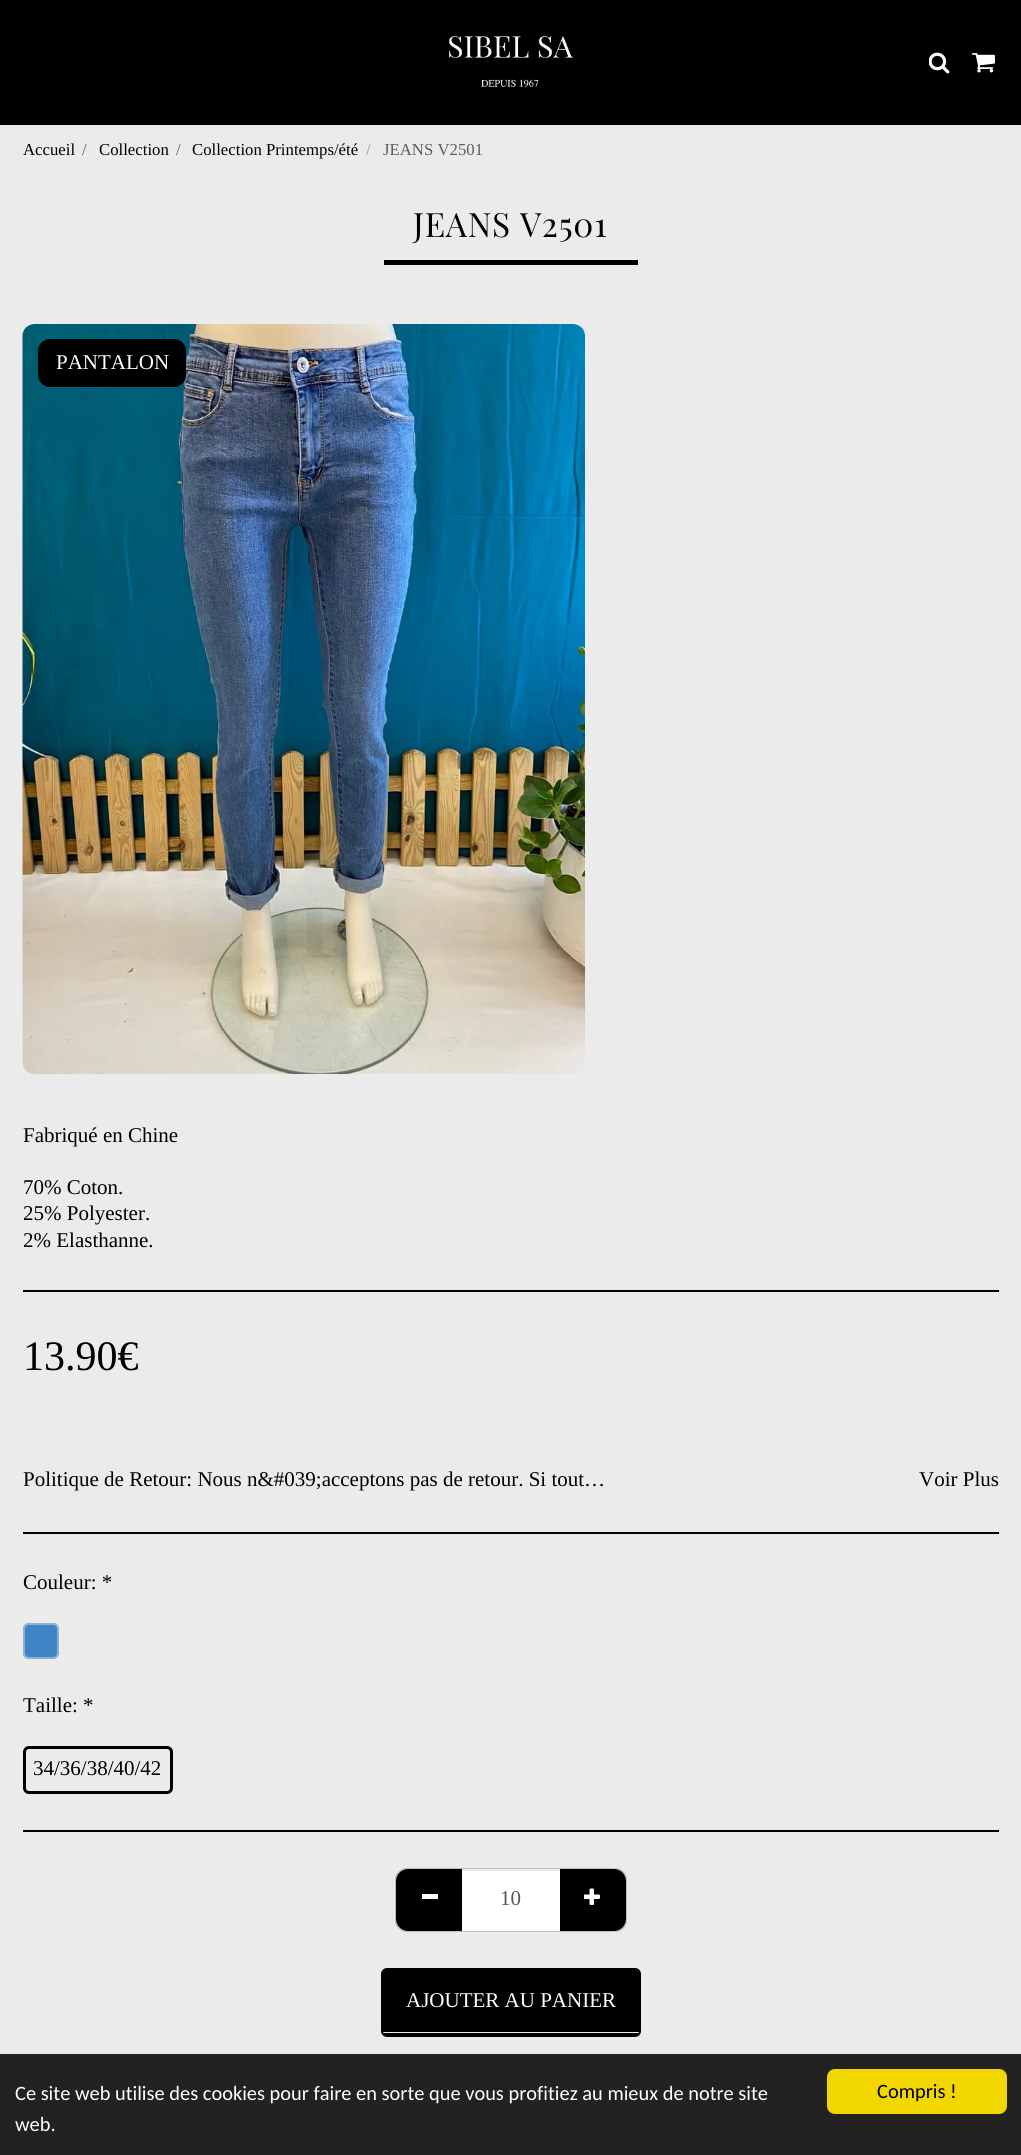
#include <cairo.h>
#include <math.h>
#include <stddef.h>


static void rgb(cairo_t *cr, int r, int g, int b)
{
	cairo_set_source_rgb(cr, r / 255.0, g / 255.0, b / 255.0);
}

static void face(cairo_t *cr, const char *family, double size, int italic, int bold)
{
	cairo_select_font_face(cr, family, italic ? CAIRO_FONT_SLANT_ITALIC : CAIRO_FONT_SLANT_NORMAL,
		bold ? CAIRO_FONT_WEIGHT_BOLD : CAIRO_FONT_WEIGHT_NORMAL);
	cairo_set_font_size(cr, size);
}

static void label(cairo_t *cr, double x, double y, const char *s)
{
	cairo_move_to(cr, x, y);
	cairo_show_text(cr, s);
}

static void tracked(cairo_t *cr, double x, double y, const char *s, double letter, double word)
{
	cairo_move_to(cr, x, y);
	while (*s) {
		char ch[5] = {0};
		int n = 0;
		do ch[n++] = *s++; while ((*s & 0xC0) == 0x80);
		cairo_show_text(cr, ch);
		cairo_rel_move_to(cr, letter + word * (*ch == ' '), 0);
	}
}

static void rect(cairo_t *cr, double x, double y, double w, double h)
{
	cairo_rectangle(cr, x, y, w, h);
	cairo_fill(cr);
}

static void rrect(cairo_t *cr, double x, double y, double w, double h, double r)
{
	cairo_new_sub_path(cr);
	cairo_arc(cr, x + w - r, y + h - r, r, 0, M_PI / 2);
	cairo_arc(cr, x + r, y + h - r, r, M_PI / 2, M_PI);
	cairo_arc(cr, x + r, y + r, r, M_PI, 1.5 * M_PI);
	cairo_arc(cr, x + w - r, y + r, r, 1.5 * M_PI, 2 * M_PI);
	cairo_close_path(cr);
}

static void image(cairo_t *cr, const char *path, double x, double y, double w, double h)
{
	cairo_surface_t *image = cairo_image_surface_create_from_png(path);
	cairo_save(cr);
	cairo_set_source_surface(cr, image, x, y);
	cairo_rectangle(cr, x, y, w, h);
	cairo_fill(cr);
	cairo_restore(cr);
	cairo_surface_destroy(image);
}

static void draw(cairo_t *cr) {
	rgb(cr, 235, 235, 235);
	cairo_paint(cr);
	rgb(cr, 0, 0, 0);
	rect(cr, 0, 0, 1021, 125);
	image(cr, "image0.png", 449, 35, 125, 53);
	image(cr, "image1.png", 929, 52, 21, 22);
	image(cr, "image2.png", 972, 53, 23, 20);
	face(cr, "Liberation Serif", 16.75, 0, 0);
	label(cr, 23, 155, "Accueil");
	rgb(cr, 94, 94, 94);
	label(cr, 82, 155, "/");
	rgb(cr, 0, 0, 0);
	label(cr, 99, 155, "Collection");
	rgb(cr, 94, 94, 94);
	label(cr, 176, 155, "/");
	rgb(cr, 0, 0, 0);
	label(cr, 192, 155, "Collection Printemps/été");
	rgb(cr, 150, 150, 150);
	label(cr, 366, 155, "/");
	rgb(cr, 94, 94, 94);
	label(cr, 383, 155, "JEANS V2501");
	rgb(cr, 0, 0, 0);
	rect(cr, 384, 260, 254, 5);
	face(cr, "Playfair Display SC", 33.5, 0, 0);
	tracked(cr, 413, 237, "JEANS V2501", 0.75, 0);
	image(cr, "image3.png", 22, 324, 563, 750);
	rrect(cr, 38, 339, 148, 48, 12);
	cairo_fill(cr);
	face(cr, "Liberation Serif", 21, 0, 0);
	rgb(cr, 255, 255, 255);
	label(cr, 56, 369, "PANTALON");
	rgb(cr, 0, 0, 0);
	label(cr, 23, 1142, "Fabriqué en Chine");
	label(cr, 23, 1194, "70% Coton.");
	label(cr, 23, 1220, "25% Polyester.");
	label(cr, 23, 1247, "2% Elasthanne.");
	rect(cr, 23, 1290, 976, 2);
	face(cr, "Liberation Serif", 42, 0, 0);
	label(cr, 23, 1370, "13.90€");
	face(cr, "Liberation Serif", 21, 0, 0);
	label(cr, 23, 1486, "Politique de Retour: Nous n&#039;acceptons pas de retour. Si tout…");
	label(cr, 919, 1486, "Voir Plus");
	rect(cr, 23, 1532, 976, 2);
	label(cr, 23, 1589, "Couleur: *");
	rgb(cr, 61, 133, 198);
	rrect(cr, 23, 1623, 36, 36, 6);
	cairo_fill(cr);
	rrect(cr, 24, 1624, 34, 34, 5);
	cairo_set_source_rgba(cr, 0.867, 0.867, 0.867, 0.5);
	cairo_stroke(cr);
	rgb(cr, 0, 0, 0);
	label(cr, 23, 1712, "Taille: *");
	rrect(cr, 24.5, 1747.5, 147, 45, 4.5);
	cairo_set_line_width(cr, 3);
	cairo_stroke(cr);
	label(cr, 33, 1775, "34/36/38/40/42");
	rect(cr, 23, 1830, 976, 2);
	rrect(cr, 396, 1869, 230, 62, 11);
	rgb(cr, 188, 188, 188);
	cairo_set_line_width(cr, 2);
	cairo_stroke(cr);
	rgb(cr, 0, 0, 0);
	cairo_new_path(cr);
	cairo_move_to(cr, 408, 1869);
	cairo_line_to(cr, 464, 1869);
	cairo_line_to(cr, 464, 1931);
	cairo_line_to(cr, 408, 1931);
	cairo_curve_to(cr, 401.5, 1931, 396, 1925.5, 396, 1919);
	cairo_line_to(cr, 396, 1881);
	cairo_curve_to(cr, 396, 1874.5, 401.5, 1869, 408, 1869);
	cairo_close_path(cr);
	cairo_fill(cr);
	rgb(cr, 255, 255, 255);
	rect(cr, 422, 1894, 16, 5);
	rgb(cr, 0, 0, 0);
	cairo_new_path(cr);
	cairo_move_to(cr, 558, 1869);
	cairo_line_to(cr, 614, 1869);
	cairo_curve_to(cr, 620.5, 1869, 626, 1874.5, 626, 1881);
	cairo_line_to(cr, 626, 1919);
	cairo_curve_to(cr, 626, 1925.5, 620.5, 1931, 614, 1931);
	cairo_line_to(cr, 558, 1931);
	cairo_close_path(cr);
	cairo_fill(cr);
	rgb(cr, 255, 255, 255);
	rect(cr, 462, 1871, 98, 60);
	rgb(cr, 236, 236, 236);
	rect(cr, 462, 1869, 98, 2);
	rgb(cr, 85, 85, 85);
	label(cr, 500, 1905, "10");
	image(cr, "image4.png", 584, 1888, 16, 17);
	rgb(cr, 0, 0, 0);
	cairo_new_path(cr);
	cairo_move_to(cr, 386, 1970);
	cairo_line_to(cr, 635, 1970);
	cairo_curve_to(cr, 637, 1970, 639, 1971, 639, 1973);
	cairo_line_to(cr, 639, 2032);
	cairo_curve_to(cr, 639, 2032, 637, 2032, 635, 2032);
	cairo_line_to(cr, 386, 2032);
	cairo_curve_to(cr, 384, 2032, 382, 2032, 382, 2032);
	cairo_line_to(cr, 382, 1973);
	cairo_curve_to(cr, 382, 1971, 384, 1970, 386, 1970);
	cairo_close_path(cr);
	cairo_fill(cr);
	rrect(cr, 382, 1969, 258, 67, 5);
	cairo_stroke(cr);
	rect(cr, 384, 2033, 254, 2);
	rgb(cr, 255, 255, 255);
	label(cr, 406, 2007, "AJOUTER AU PANIER");
	rgb(cr, 34, 34, 34);
	rect(cr, 0, 2054, 1021, 101);
	face(cr, "Carlito", 20.4, 0, 0);
	rgb(cr, 255, 255, 255);
	label(cr, 15, 2100, "Ce site web utilise des cookies pour faire en sorte que vous profitiez au mieux de notre site");
	label(cr, 15, 2131, "web.");
	rgb(cr, 241, 214, 0);
	rrect(cr, 827, 2069, 180, 45, 8);
	cairo_fill(cr);
	rgb(cr, 0, 0, 0);
	label(cr, 877, 2098, "Compris !");
}

int main(void) {
	cairo_surface_t *surface = cairo_image_surface_create(CAIRO_FORMAT_RGB24, 1021, 2155);
	cairo_t *cr = cairo_create(surface);
	cairo_font_options_t *options = cairo_font_options_create();
	cairo_font_options_set_hint_metrics(options, CAIRO_HINT_METRICS_OFF);
	cairo_font_options_set_hint_style(options, CAIRO_HINT_STYLE_NONE);
	cairo_set_font_options(cr, options);
	cairo_set_miter_limit(cr, 4);
	draw(cr);
	cairo_surface_write_to_png(surface, "render.png");
	cairo_font_options_destroy(options);
	cairo_destroy(cr);
	cairo_surface_destroy(surface);
	return 0;
}
